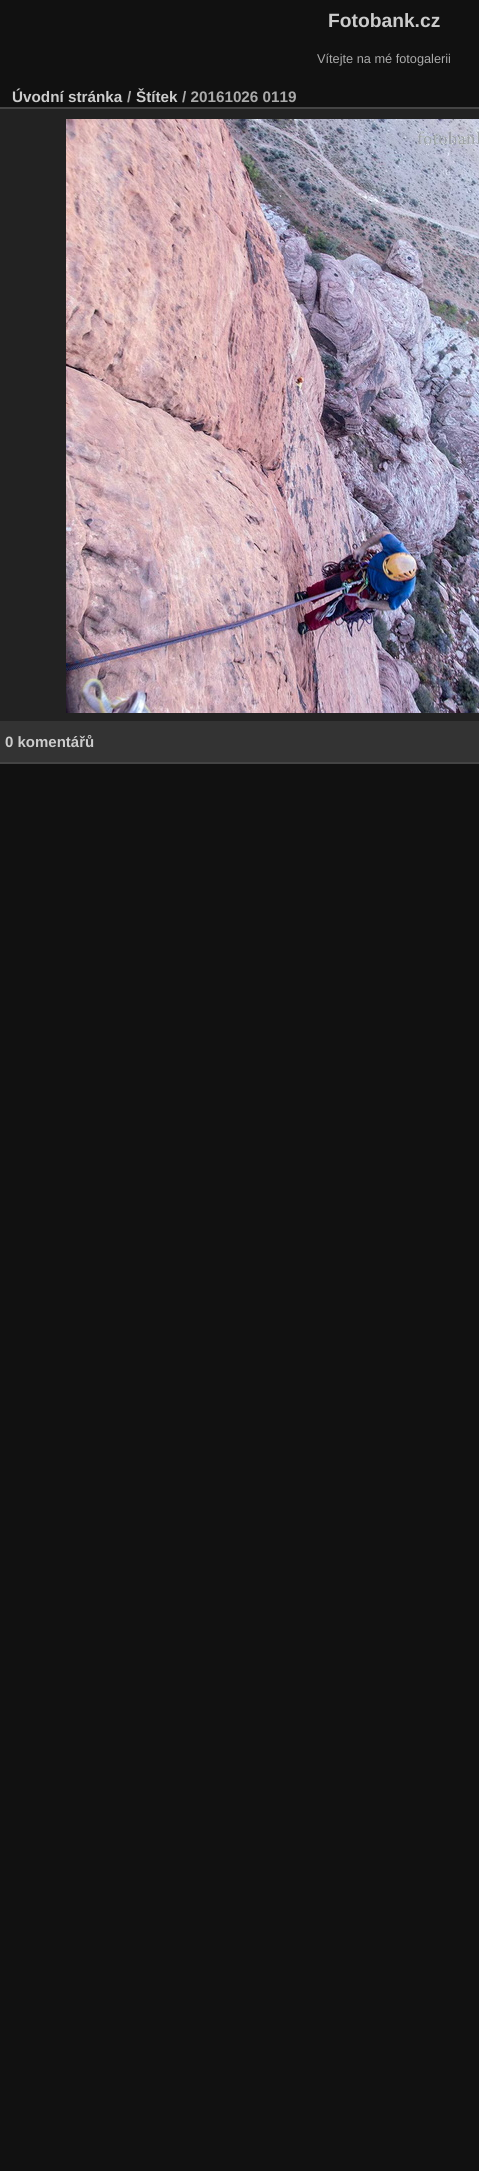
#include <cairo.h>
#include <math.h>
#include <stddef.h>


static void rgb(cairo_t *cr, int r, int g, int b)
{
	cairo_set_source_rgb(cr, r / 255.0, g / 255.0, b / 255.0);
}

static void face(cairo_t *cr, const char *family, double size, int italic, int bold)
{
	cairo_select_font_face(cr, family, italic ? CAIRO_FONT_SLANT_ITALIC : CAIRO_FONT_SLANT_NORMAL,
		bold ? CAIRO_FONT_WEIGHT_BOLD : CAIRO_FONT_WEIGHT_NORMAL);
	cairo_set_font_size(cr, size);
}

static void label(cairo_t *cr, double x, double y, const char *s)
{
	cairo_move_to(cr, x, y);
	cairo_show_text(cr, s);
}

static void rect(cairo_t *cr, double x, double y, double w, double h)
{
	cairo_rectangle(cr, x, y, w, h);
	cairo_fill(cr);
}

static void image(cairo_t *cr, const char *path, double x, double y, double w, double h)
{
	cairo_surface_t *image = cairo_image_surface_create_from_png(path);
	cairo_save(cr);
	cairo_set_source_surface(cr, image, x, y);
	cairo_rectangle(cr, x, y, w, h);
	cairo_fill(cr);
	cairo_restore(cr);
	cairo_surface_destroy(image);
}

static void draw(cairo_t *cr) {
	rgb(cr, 17, 17, 17);
	cairo_paint(cr);
	face(cr, "Liberation Sans", 19.25, 0, 1);
	rgb(cr, 204, 204, 204);
	label(cr, 328, 27, "Fotobank.cz");
	face(cr, "Liberation Sans", 12.75, 0, 0);
	rgb(cr, 170, 170, 170);
	label(cr, 317, 63, "Vítejte na mé fotogalerii");
	rgb(cr, 34, 34, 34);
	rect(cr, 0, 109, 479, 612);
	rgb(cr, 68, 68, 68);
	rect(cr, 0, 762, 479, 2);
	rect(cr, 0, 107, 479, 2);
	face(cr, "Liberation Sans", 15.25, 0, 1);
	rgb(cr, 204, 204, 204);
	label(cr, 12, 102, "Úvodní stránka");
	rgb(cr, 170, 170, 170);
	label(cr, 127, 102, "/");
	rgb(cr, 204, 204, 204);
	label(cr, 136, 102, "Štítek");
	rgb(cr, 170, 170, 170);
	label(cr, 182, 102, "/ 20161026 0119");
	image(cr, "image0.png", 66, 119, 413, 594);
	rgb(cr, 51, 51, 51);
	rect(cr, 0, 721, 479, 41);
	face(cr, "Liberation Sans", 15, 0, 1);
	rgb(cr, 204, 204, 204);
	label(cr, 5, 747, "0 komentářů");
}

int main(void) {
	cairo_surface_t *surface = cairo_image_surface_create(CAIRO_FORMAT_RGB24, 479, 2171);
	cairo_t *cr = cairo_create(surface);
	cairo_font_options_t *options = cairo_font_options_create();
	cairo_font_options_set_hint_metrics(options, CAIRO_HINT_METRICS_OFF);
	cairo_font_options_set_hint_style(options, CAIRO_HINT_STYLE_NONE);
	cairo_set_font_options(cr, options);
	cairo_set_miter_limit(cr, 4);
	draw(cr);
	cairo_surface_write_to_png(surface, "render.png");
	cairo_font_options_destroy(options);
	cairo_destroy(cr);
	cairo_surface_destroy(surface);
	return 0;
}
